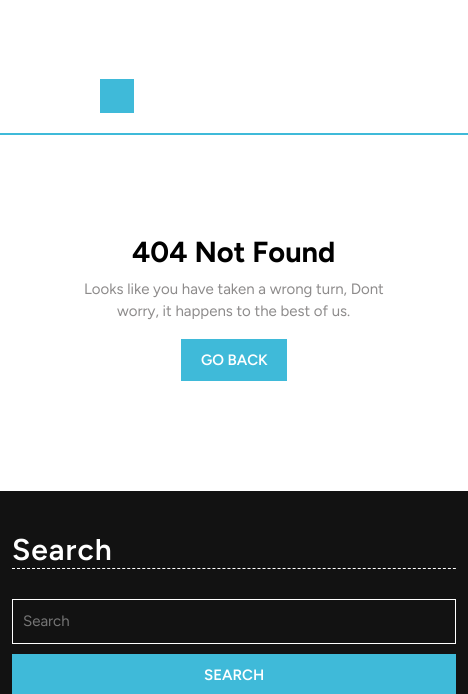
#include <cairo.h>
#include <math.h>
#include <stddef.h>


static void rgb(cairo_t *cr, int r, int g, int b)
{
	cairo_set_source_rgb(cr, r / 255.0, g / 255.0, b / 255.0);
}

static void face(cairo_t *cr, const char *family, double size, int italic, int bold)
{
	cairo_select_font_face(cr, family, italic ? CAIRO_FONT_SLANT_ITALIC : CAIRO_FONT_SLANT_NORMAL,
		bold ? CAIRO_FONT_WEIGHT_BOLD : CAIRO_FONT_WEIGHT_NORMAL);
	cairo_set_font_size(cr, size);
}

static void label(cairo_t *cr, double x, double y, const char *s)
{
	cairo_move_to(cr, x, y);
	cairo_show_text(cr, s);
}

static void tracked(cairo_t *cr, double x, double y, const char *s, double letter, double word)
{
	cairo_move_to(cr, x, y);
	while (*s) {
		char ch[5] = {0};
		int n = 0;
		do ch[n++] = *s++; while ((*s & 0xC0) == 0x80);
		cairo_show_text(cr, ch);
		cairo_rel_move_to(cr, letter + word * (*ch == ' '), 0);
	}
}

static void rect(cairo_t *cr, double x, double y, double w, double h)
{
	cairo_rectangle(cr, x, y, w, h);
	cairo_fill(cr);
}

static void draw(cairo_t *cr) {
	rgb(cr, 255, 255, 255);
	cairo_paint(cr);
	rgb(cr, 63, 186, 217);
	rect(cr, 0, 133, 468, 2);
	rect(cr, 100, 79, 34, 34);
	face(cr, "Figtree", 29, 0, 1);
	rgb(cr, 0, 0, 0);
	label(cr, 132, 262, "404 Not Found");
	face(cr, "Figtree", 15, 0, 0);
	rgb(cr, 141, 139, 139);
	label(cr, 84, 294, "Looks like you have taken a wrong turn, Dont");
	label(cr, 117, 316, "worry, it happens to the best of us.");
	rgb(cr, 63, 186, 217);
	rect(cr, 181, 339, 106, 42);
	face(cr, "Figtree SemiBold", 15, 0, 0);
	rgb(cr, 255, 255, 255);
	label(cr, 201, 365, "GO BACK");
	rgb(cr, 18, 18, 18);
	rect(cr, 0, 491, 468, 203);
	cairo_new_path(cr);
	cairo_move_to(cr, 12, 568.5);
	cairo_line_to(cr, 456, 568.5);
	rgb(cr, 255, 255, 255);
	cairo_set_line_width(cr, 1);
	cairo_set_dash(cr, (double[]){3, 2.01}, 2, 0);
	cairo_stroke(cr);
	face(cr, "Figtree SemiBold", 30, 0, 0);
	tracked(cr, 12, 560, "Search", 1, 0);
	cairo_rectangle(cr, 12.5, 599.5, 443, 44);
	cairo_set_dash(cr, NULL, 0, 0);
	cairo_stroke(cr);
	face(cr, "Figtree", 15, 0, 0);
	rgb(cr, 117, 117, 117);
	label(cr, 23, 626, "Search");
	rgb(cr, 63, 186, 217);
	rect(cr, 12, 654, 444, 40);
	face(cr, "Figtree SemiBold", 15, 0, 0);
	rgb(cr, 255, 255, 255);
	label(cr, 204, 680, "SEARCH");
}

int main(void) {
	cairo_surface_t *surface = cairo_image_surface_create(CAIRO_FORMAT_RGB24, 468, 694);
	cairo_t *cr = cairo_create(surface);
	cairo_font_options_t *options = cairo_font_options_create();
	cairo_font_options_set_hint_metrics(options, CAIRO_HINT_METRICS_OFF);
	cairo_font_options_set_hint_style(options, CAIRO_HINT_STYLE_NONE);
	cairo_set_font_options(cr, options);
	cairo_set_miter_limit(cr, 4);
	draw(cr);
	cairo_surface_write_to_png(surface, "render.png");
	cairo_font_options_destroy(options);
	cairo_destroy(cr);
	cairo_surface_destroy(surface);
	return 0;
}
